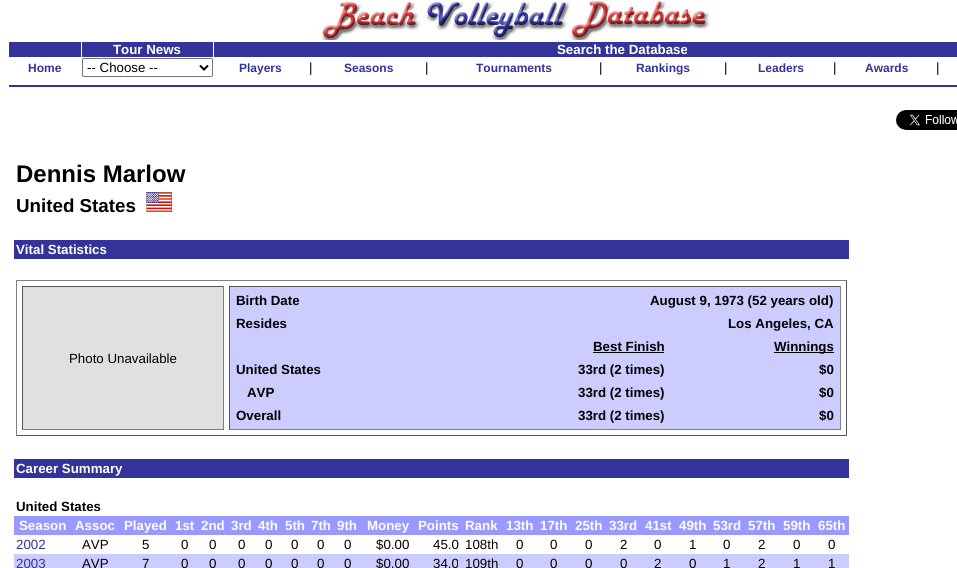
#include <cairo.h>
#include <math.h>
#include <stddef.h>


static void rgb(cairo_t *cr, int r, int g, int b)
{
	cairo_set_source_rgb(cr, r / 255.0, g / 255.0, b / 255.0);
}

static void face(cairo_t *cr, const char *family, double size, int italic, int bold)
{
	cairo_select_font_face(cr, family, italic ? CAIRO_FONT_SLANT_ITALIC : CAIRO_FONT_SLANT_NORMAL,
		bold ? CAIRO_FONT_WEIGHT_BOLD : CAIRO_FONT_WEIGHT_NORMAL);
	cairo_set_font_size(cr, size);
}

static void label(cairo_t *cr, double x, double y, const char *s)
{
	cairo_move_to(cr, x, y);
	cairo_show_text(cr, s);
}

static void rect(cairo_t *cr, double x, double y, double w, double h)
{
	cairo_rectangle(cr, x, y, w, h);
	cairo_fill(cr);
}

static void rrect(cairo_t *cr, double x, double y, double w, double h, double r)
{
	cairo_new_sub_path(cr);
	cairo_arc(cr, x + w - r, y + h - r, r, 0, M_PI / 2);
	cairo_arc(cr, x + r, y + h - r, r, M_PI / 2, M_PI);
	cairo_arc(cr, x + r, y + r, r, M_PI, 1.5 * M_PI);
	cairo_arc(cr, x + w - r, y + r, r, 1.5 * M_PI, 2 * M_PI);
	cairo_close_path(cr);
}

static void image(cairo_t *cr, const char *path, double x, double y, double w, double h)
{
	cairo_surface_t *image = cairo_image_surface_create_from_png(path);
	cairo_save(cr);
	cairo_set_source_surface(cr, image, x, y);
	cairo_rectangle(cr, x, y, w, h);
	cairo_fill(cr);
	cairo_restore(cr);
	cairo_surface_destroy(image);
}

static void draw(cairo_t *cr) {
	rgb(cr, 255, 255, 255);
	cairo_paint(cr);
	image(cr, "image0.png", 316, 0, 394, 40);
	rgb(cr, 51, 51, 153);
	rect(cr, 9, 42, 72, 15);
	rect(cr, 82, 42, 131, 15);
	face(cr, "Liberation Sans", 13.3, 0, 1);
	rgb(cr, 255, 255, 255);
	label(cr, 113, 54, "Tour News");
	rgb(cr, 51, 51, 153);
	rect(cr, 214, 42, 743, 15);
	rgb(cr, 255, 255, 255);
	label(cr, 557, 54, "Search the Database");
	face(cr, "Liberation Sans", 12, 0, 1);
	rgb(cr, 51, 51, 153);
	label(cr, 28, 72, "Home");
	rrect(cr, 82.5, 58.5, 130, 18, 1.5);
	rgb(cr, 118, 118, 118);
	cairo_set_line_width(cr, 1);
	cairo_stroke(cr);
	cairo_new_path(cr);
	cairo_move_to(cr, 200, 65.5);
	cairo_line_to(cr, 204, 69.5);
	cairo_line_to(cr, 208, 65.5);
	rgb(cr, 0, 0, 0);
	cairo_set_line_width(cr, 2);
	cairo_stroke(cr);
	face(cr, "Liberation Sans", 13.3, 0, 0);
	label(cr, 87, 72, "-- Choose --");
	face(cr, "Liberation Sans", 12, 0, 1);
	rgb(cr, 51, 51, 153);
	label(cr, 239, 72, "Players");
	face(cr, "Liberation Sans", 13.3, 0, 0);
	rgb(cr, 0, 0, 0);
	label(cr, 309, 72, "|");
	face(cr, "Liberation Sans", 12, 0, 1);
	rgb(cr, 51, 51, 153);
	label(cr, 344, 72, "Seasons");
	face(cr, "Liberation Sans", 13.3, 0, 0);
	rgb(cr, 0, 0, 0);
	label(cr, 425, 72, "|");
	face(cr, "Liberation Sans", 12, 0, 1);
	rgb(cr, 51, 51, 153);
	label(cr, 476, 72, "Tournaments");
	face(cr, "Liberation Sans", 13.3, 0, 0);
	rgb(cr, 0, 0, 0);
	label(cr, 599, 72, "|");
	face(cr, "Liberation Sans", 12, 0, 1);
	rgb(cr, 51, 51, 153);
	label(cr, 636, 72, "Rankings");
	face(cr, "Liberation Sans", 13.3, 0, 0);
	rgb(cr, 0, 0, 0);
	label(cr, 724, 72, "|");
	face(cr, "Liberation Sans", 12, 0, 1);
	rgb(cr, 51, 51, 153);
	label(cr, 758, 72, "Leaders");
	face(cr, "Liberation Sans", 13.3, 0, 0);
	rgb(cr, 0, 0, 0);
	label(cr, 833, 72, "|");
	face(cr, "Liberation Sans", 12, 0, 1);
	rgb(cr, 51, 51, 153);
	label(cr, 865, 72, "Awards");
	face(cr, "Liberation Sans", 13.3, 0, 0);
	rgb(cr, 0, 0, 0);
	label(cr, 936, 72, "|");
	rgb(cr, 51, 51, 153);
	rect(cr, 9, 85, 948, 2);
	image(cr, "image1.png", 896, 110, 61, 20);
	face(cr, "Liberation Sans", 24, 0, 1);
	rgb(cr, 0, 0, 0);
	label(cr, 16, 182, "Dennis Marlow");
	face(cr, "Liberation Sans", 18.75, 0, 1);
	label(cr, 16, 212, "United States");
	image(cr, "image2.png", 146, 192, 26, 20);
	rgb(cr, 51, 51, 153);
	rect(cr, 14, 240, 835, 19);
	face(cr, "Liberation Sans", 13.3, 0, 1);
	rgb(cr, 255, 255, 255);
	label(cr, 16, 254, "Vital Statistics");
	rgb(cr, 128, 128, 128);
	rect(cr, 16, 280, 831, 1);
	rgb(cr, 85, 85, 85);
	rect(cr, 846, 280, 1, 156);
	rect(cr, 16, 435, 831, 1);
	rgb(cr, 128, 128, 128);
	rect(cr, 16, 280, 1, 156);
	rgb(cr, 224, 224, 224);
	rect(cr, 23, 287, 200, 142);
	rgb(cr, 85, 85, 85);
	rect(cr, 22, 286, 202, 1);
	rgb(cr, 128, 128, 128);
	rect(cr, 223, 286, 1, 144);
	rect(cr, 22, 429, 202, 1);
	rgb(cr, 85, 85, 85);
	rect(cr, 22, 286, 1, 144);
	face(cr, "Liberation Sans", 13.3, 0, 0);
	rgb(cr, 0, 0, 0);
	label(cr, 69, 363, "Photo Unavailable");
	rgb(cr, 204, 204, 255);
	rect(cr, 230, 287, 610, 142);
	rgb(cr, 85, 85, 85);
	rect(cr, 229, 286, 612, 1);
	rgb(cr, 128, 128, 128);
	rect(cr, 840, 286, 1, 144);
	rect(cr, 229, 429, 612, 1);
	rgb(cr, 85, 85, 85);
	rect(cr, 229, 286, 1, 144);
	face(cr, "Liberation Sans", 13.3, 0, 1);
	rgb(cr, 0, 0, 0);
	label(cr, 236, 305, "Birth Date");
	label(cr, 650, 305, "August 9, 1973 (52 years old)");
	label(cr, 236, 328, "Resides");
	label(cr, 728, 328, "Los Angeles, CA");
	label(cr, 593, 351, "Best Finish");
	rect(cr, 593, 352, 71, 1);
	rect(cr, 774, 352, 60, 1);
	label(cr, 774, 351, "Winnings");
	label(cr, 236, 374, "United States");
	label(cr, 578, 374, "33rd (2 times)");
	label(cr, 819, 374, "$0");
	label(cr, 247, 397, "AVP");
	label(cr, 578, 397, "33rd (2 times)");
	label(cr, 819, 397, "$0");
	label(cr, 236, 420, "Overall");
	label(cr, 578, 420, "33rd (2 times)");
	label(cr, 819, 420, "$0");
	rgb(cr, 51, 51, 153);
	rect(cr, 14, 459, 835, 19);
	rgb(cr, 255, 255, 255);
	label(cr, 16, 473, "Career Summary");
	rgb(cr, 0, 0, 0);
	label(cr, 16, 511, "United States");
	rgb(cr, 153, 153, 255);
	rect(cr, 14, 516, 835, 19);
	rgb(cr, 255, 255, 255);
	label(cr, 19, 530, "Season");
	label(cr, 75, 530, "Assoc");
	label(cr, 124, 530, "Played");
	label(cr, 175, 530, "1st");
	label(cr, 201, 530, "2nd");
	label(cr, 231, 530, "3rd");
	label(cr, 258, 530, "4th");
	label(cr, 285, 530, "5th");
	label(cr, 311, 530, "7th");
	label(cr, 337, 530, "9th");
	label(cr, 367, 530, "Money");
	label(cr, 418, 530, "Points");
	label(cr, 465, 530, "Rank");
	label(cr, 506, 530, "13th");
	label(cr, 540, 530, "17th");
	label(cr, 575, 530, "25th");
	label(cr, 609, 530, "33rd");
	label(cr, 645, 530, "41st");
	label(cr, 679, 530, "49th");
	label(cr, 713, 530, "53rd");
	label(cr, 748, 530, "57th");
	label(cr, 783, 530, "59th");
	label(cr, 818, 530, "65th");
	face(cr, "Liberation Sans", 13.3, 0, 0);
	rgb(cr, 51, 51, 153);
	label(cr, 16, 549, "2002");
	rgb(cr, 0, 0, 0);
	label(cr, 82, 549, "AVP");
	label(cr, 142, 549, "5");
	label(cr, 181, 549, "0");
	label(cr, 209, 549, "0");
	label(cr, 238, 549, "0");
	label(cr, 265, 549, "0");
	label(cr, 291, 549, "0");
	label(cr, 317, 549, "0");
	label(cr, 344, 549, "0");
	label(cr, 376, 549, "$0.00");
	label(cr, 433, 549, "45.0");
	label(cr, 465, 549, "108th");
	label(cr, 516, 549, "0");
	label(cr, 550, 549, "0");
	label(cr, 585, 549, "0");
	label(cr, 620, 549, "2");
	label(cr, 654, 549, "0");
	label(cr, 689, 549, "1");
	label(cr, 723, 549, "0");
	label(cr, 758, 549, "2");
	label(cr, 793, 549, "0");
	label(cr, 828, 549, "0");
	rgb(cr, 204, 204, 255);
	rect(cr, 14, 554, 835, 14);
	rgb(cr, 51, 51, 153);
	label(cr, 16, 568, "2003");
	rgb(cr, 0, 0, 0);
	label(cr, 82, 568, "AVP");
	label(cr, 142, 568, "7");
	label(cr, 181, 568, "0");
	label(cr, 209, 568, "0");
	label(cr, 238, 568, "0");
	label(cr, 265, 568, "0");
	label(cr, 291, 568, "0");
	label(cr, 317, 568, "0");
	label(cr, 344, 568, "0");
	label(cr, 376, 568, "$0.00");
	label(cr, 433, 568, "34.0");
	label(cr, 465, 568, "109th");
	label(cr, 516, 568, "0");
	label(cr, 550, 568, "0");
	label(cr, 585, 568, "0");
	label(cr, 620, 568, "0");
	label(cr, 654, 568, "2");
	label(cr, 689, 568, "0");
	label(cr, 723, 568, "1");
	label(cr, 758, 568, "2");
	label(cr, 793, 568, "1");
	label(cr, 828, 568, "1");
}

int main(void) {
	cairo_surface_t *surface = cairo_image_surface_create(CAIRO_FORMAT_RGB24, 957, 568);
	cairo_t *cr = cairo_create(surface);
	cairo_font_options_t *options = cairo_font_options_create();
	cairo_font_options_set_hint_metrics(options, CAIRO_HINT_METRICS_OFF);
	cairo_font_options_set_hint_style(options, CAIRO_HINT_STYLE_NONE);
	cairo_set_font_options(cr, options);
	cairo_set_miter_limit(cr, 4);
	draw(cr);
	cairo_surface_write_to_png(surface, "render.png");
	cairo_font_options_destroy(options);
	cairo_destroy(cr);
	cairo_surface_destroy(surface);
	return 0;
}
